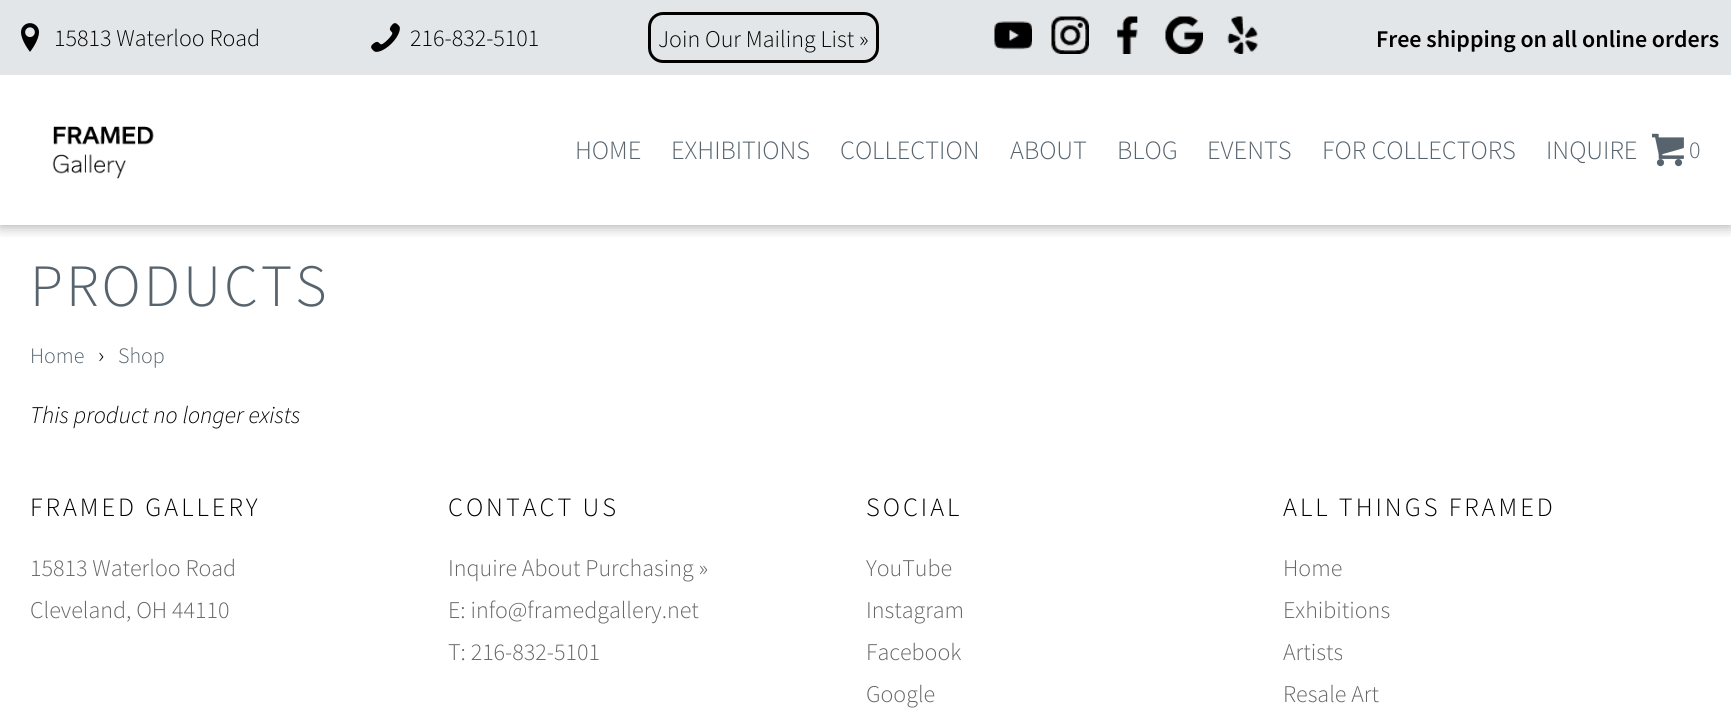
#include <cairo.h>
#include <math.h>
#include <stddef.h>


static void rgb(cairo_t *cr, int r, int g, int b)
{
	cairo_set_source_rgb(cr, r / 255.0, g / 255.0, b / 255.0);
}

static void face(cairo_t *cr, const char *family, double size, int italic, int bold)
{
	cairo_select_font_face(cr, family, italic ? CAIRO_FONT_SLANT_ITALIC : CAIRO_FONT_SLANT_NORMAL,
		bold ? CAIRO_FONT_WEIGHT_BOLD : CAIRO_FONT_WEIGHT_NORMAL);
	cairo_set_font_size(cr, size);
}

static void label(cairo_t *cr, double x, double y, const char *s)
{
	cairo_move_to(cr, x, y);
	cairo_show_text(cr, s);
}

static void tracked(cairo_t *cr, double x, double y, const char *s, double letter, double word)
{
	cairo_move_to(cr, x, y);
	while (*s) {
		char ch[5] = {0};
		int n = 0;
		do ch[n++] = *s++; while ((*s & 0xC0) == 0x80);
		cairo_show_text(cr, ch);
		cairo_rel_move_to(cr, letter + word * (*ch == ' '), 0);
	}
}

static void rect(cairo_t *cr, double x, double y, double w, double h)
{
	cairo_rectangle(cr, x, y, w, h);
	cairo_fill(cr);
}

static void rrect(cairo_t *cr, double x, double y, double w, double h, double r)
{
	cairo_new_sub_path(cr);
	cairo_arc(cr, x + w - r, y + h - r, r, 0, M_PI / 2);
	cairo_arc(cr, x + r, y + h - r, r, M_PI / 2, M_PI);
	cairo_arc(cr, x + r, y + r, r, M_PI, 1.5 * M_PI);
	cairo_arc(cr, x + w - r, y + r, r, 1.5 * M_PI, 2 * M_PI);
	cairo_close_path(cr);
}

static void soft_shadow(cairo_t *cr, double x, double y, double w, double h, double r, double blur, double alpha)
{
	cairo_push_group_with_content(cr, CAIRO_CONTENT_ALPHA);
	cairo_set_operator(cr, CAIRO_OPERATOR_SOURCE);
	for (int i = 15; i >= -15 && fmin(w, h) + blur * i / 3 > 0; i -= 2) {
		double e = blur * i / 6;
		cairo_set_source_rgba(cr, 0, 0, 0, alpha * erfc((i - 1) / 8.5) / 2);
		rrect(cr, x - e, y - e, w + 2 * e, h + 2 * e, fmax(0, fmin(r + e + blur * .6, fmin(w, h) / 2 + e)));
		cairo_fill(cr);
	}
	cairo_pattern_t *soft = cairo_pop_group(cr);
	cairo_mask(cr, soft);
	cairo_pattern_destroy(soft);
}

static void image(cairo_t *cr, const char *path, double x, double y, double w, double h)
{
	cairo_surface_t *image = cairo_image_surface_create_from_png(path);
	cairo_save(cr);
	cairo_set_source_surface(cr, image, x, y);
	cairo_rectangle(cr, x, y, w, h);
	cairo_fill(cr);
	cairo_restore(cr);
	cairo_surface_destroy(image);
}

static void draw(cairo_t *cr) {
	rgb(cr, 255, 255, 255);
	cairo_paint(cr);
	cairo_save(cr);
	cairo_rectangle(cr, 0, 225, 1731, 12);
	cairo_clip(cr);
	rgb(cr, 0, 0, 0);
	soft_shadow(cr, 0, 0, 1731, 225, 0, 7.5, 0.4);
	cairo_restore(cr);
	rgb(cr, 227, 230, 232);
	rect(cr, 0, 0, 1731, 75);
	image(cr, "image0.png", 21, 23, 18, 29);
	face(cr, "Source Sans Pro Light", 24, 0, 0);
	rgb(cr, 0, 0, 0);
	label(cr, 54, 46, "15813 Waterloo Road");
	image(cr, "image1.png", 371, 23, 29, 29);
	label(cr, 410, 46, "216-832-5101");
	rrect(cr, 649.5, 13.5, 228, 48, 13.5);
	cairo_set_line_width(cr, 3);
	cairo_stroke(cr);
	label(cr, 658, 47, "Join Our Mailing List »");
	image(cr, "image2.png", 994, 21, 38, 29);
	image(cr, "image3.png", 1051, 16, 38, 38);
	image(cr, "image4.png", 1117, 16, 21, 38);
	image(cr, "image5.png", 1165, 16, 38, 38);
	image(cr, "image6.png", 1227, 16, 31, 38);
	face(cr, "Source Sans Pro SemiBold", 24, 0, 0);
	label(cr, 1376, 47, "Free shipping on all online orders");
	image(cr, "image7.png", 52, 126, 102, 53);
	face(cr, "Source Sans Pro Light", 26.4, 0, 0);
	rgb(cr, 87, 99, 109);
	label(cr, 575, 159, "HOME");
	label(cr, 671, 159, "EXHIBITIONS");
	label(cr, 840, 159, "COLLECTION");
	label(cr, 1010, 159, "ABOUT");
	label(cr, 1117, 159, "BLOG");
	label(cr, 1207, 159, "EVENTS");
	label(cr, 1322, 159, "FOR COLLECTORS");
	label(cr, 1546, 159, "INQUIRE");
	image(cr, "image8.png", 1652, 133, 32, 34);
	face(cr, "Source Sans Pro Light", 24, 0, 0);
	label(cr, 1689, 158, "0");
	face(cr, "Source Sans Pro Light", 60, 0, 0);
	tracked(cr, 30, 306, "PRODUCTS", 3, 0);
	face(cr, "Source Sans Pro Light", 22, 0, 0);
	label(cr, 30, 363, "Home");
	face(cr, "Source Sans Pro Light", 24, 0, 0);
	rgb(cr, 0, 0, 0);
	label(cr, 98, 363, "›");
	face(cr, "Source Sans Pro Light", 22, 0, 0);
	rgb(cr, 87, 99, 109);
	label(cr, 118, 363, "Shop");
	face(cr, "Source Sans Pro Light", 24, 1, 0);
	rgb(cr, 0, 0, 0);
	label(cr, 30, 423, "This product no longer exists");
	face(cr, "Source Sans Pro Light", 26.4, 0, 0);
	tracked(cr, 30, 516, "FRAMED GALLERY", 3, 0);
	face(cr, "Source Sans Pro Light", 24, 0, 0);
	rgb(cr, 102, 102, 102);
	label(cr, 30, 576, "15813 Waterloo Road");
	label(cr, 30, 618, "Cleveland, OH 44110");
	face(cr, "Source Sans Pro Light", 26.4, 0, 0);
	rgb(cr, 0, 0, 0);
	tracked(cr, 448, 516, "CONTACT US", 3, 0);
	face(cr, "Source Sans Pro Light", 24, 0, 0);
	rgb(cr, 102, 102, 102);
	label(cr, 448, 576, "Inquire About Purchasing »");
	label(cr, 448, 618, "E: info@framedgallery.net");
	label(cr, 448, 660, "T: 216-832-5101");
	face(cr, "Source Sans Pro Light", 26.4, 0, 0);
	rgb(cr, 0, 0, 0);
	tracked(cr, 866, 516, "SOCIAL", 3, 0);
	face(cr, "Source Sans Pro Light", 24, 0, 0);
	rgb(cr, 102, 102, 102);
	label(cr, 866, 576, "YouTube");
	label(cr, 866, 618, "Instagram");
	label(cr, 866, 660, "Facebook");
	label(cr, 866, 702, "Google");
	face(cr, "Source Sans Pro Light", 26.4, 0, 0);
	rgb(cr, 0, 0, 0);
	tracked(cr, 1283, 516, "ALL THINGS FRAMED", 3, 0);
	face(cr, "Source Sans Pro Light", 24, 0, 0);
	rgb(cr, 102, 102, 102);
	label(cr, 1283, 576, "Home");
	label(cr, 1283, 618, "Exhibitions");
	label(cr, 1283, 660, "Artists");
	label(cr, 1283, 702, "Resale Art");
}

int main(void) {
	cairo_surface_t *surface = cairo_image_surface_create(CAIRO_FORMAT_RGB24, 1731, 720);
	cairo_t *cr = cairo_create(surface);
	cairo_font_options_t *options = cairo_font_options_create();
	cairo_font_options_set_hint_metrics(options, CAIRO_HINT_METRICS_OFF);
	cairo_font_options_set_hint_style(options, CAIRO_HINT_STYLE_NONE);
	cairo_set_font_options(cr, options);
	cairo_set_miter_limit(cr, 4);
	draw(cr);
	cairo_surface_write_to_png(surface, "render.png");
	cairo_font_options_destroy(options);
	cairo_destroy(cr);
	cairo_surface_destroy(surface);
	return 0;
}
